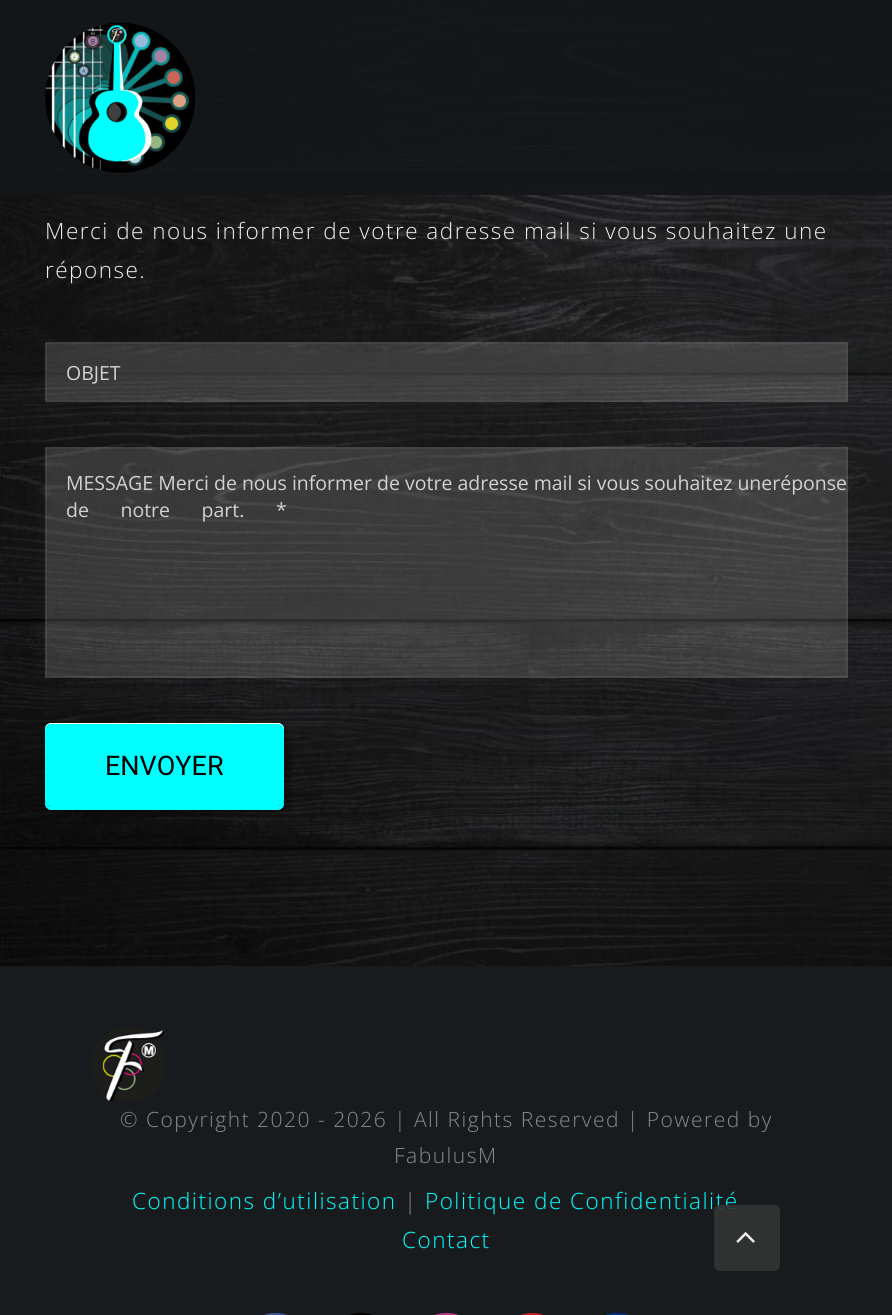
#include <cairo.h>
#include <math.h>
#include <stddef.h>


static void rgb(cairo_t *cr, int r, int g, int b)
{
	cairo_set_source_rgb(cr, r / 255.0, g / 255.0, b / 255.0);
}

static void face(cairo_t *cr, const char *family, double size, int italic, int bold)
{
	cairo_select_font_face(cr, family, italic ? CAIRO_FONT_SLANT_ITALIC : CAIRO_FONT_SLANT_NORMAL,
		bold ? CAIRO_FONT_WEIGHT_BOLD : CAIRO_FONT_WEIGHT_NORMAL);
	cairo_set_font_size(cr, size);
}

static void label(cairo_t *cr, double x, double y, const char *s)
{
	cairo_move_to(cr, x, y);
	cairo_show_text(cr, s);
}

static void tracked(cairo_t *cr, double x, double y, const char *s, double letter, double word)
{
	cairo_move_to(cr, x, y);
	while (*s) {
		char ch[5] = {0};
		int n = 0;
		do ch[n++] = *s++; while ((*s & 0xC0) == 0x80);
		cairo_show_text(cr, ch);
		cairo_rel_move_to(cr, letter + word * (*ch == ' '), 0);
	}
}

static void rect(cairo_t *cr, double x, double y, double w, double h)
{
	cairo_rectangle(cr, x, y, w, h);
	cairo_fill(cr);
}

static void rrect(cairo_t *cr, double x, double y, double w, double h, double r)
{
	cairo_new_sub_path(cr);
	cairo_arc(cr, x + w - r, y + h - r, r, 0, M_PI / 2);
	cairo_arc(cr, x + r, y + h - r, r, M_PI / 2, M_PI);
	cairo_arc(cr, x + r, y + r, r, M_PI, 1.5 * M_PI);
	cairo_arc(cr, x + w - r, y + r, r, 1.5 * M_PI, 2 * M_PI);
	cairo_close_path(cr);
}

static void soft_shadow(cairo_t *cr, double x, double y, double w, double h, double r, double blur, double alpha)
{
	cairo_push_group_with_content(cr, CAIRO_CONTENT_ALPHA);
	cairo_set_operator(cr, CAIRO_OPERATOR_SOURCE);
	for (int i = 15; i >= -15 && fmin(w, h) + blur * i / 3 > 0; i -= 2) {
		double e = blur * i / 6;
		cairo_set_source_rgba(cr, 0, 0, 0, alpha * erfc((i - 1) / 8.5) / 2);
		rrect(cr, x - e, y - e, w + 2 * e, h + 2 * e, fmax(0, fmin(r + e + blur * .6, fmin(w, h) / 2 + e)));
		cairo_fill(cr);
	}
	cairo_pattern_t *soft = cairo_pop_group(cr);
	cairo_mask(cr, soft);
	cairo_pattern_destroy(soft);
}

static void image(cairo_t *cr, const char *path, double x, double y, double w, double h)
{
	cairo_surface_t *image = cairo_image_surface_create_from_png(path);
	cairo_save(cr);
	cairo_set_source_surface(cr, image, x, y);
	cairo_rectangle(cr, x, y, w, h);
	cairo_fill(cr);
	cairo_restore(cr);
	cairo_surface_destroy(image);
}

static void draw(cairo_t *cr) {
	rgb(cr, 255, 255, 255);
	cairo_paint(cr);
	image(cr, "image1.png", 0, 0, 892, 966);
	cairo_set_source_rgba(cr, 0.078, 0.09, 0.098, 0.9);
	rect(cr, 0, 0, 892, 195);
	image(cr, "image0.png", 45, 22, 150, 151);
	face(cr, "Open Sans Light", 22.5, 0, 0);
	rgb(cr, 239, 239, 239);
	tracked(cr, 45, 239, "Merci de nous informer de votre adresse mail si vous souhaitez une", 1.5, 0);
	tracked(cr, 45, 278, "réponse.", 1.5, 0);
	cairo_set_source_rgba(cr, 1, 1, 1, 0.15);
	rect(cr, 45, 342, 803, 60);
	cairo_rectangle(cr, 46, 343, 801, 58);
	cairo_set_source_rgba(cr, 1, 1, 1, 0.05);
	cairo_stroke(cr);
	face(cr, "Open Sans", 19.5, 0, 0);
	rgb(cr, 211, 209, 209);
	label(cr, 66, 380, "OBJET");
	cairo_set_source_rgba(cr, 1, 1, 1, 0.15);
	rect(cr, 45, 447, 803, 231);
	cairo_rectangle(cr, 46, 448, 801, 229);
	cairo_set_source_rgba(cr, 1, 1, 1, 0.05);
	cairo_stroke(cr);
	rgb(cr, 211, 209, 209);
	label(cr, 66, 490, "MESSAGE Merci de nous informer de votre adresse mail si vous souhaitez uneréponse");
	tracked(cr, 66, 517, "de notre part. *", 0, 26.5);
	rgb(cr, 0, 0, 0);
	soft_shadow(cr, 44, 725, 247, 90, 11, 2.5, 0.3);
	rgb(cr, 0, 255, 255);
	cairo_new_path(cr);
	cairo_move_to(cr, 45, 800);
	cairo_line_to(cr, 45, 804);
	cairo_curve_to(cr, 45, 807, 48, 810, 51, 810);
	cairo_line_to(cr, 278, 810);
	cairo_curve_to(cr, 281, 810, 284, 807, 284, 804);
	cairo_line_to(cr, 284, 734);
	cairo_line_to(cr, 284, 732);
	cairo_line_to(cr, 284, 800);
	cairo_curve_to(cr, 284, 803, 281, 806, 278, 806);
	cairo_line_to(cr, 51, 806);
	cairo_curve_to(cr, 48, 806, 45, 803, 45, 800);
	cairo_close_path(cr);
	cairo_fill(cr);
	rrect(cr, 45, 723, 239, 83, 6);
	cairo_fill(cr);
	rgb(cr, 255, 255, 255);
	cairo_new_path(cr);
	cairo_move_to(cr, 51, 724);
	cairo_line_to(cr, 278, 724);
	cairo_curve_to(cr, 281, 724, 284, 727, 284, 730);
	cairo_line_to(cr, 284, 729);
	cairo_curve_to(cr, 284, 726, 281, 723, 278, 723);
	cairo_line_to(cr, 51, 723);
	cairo_curve_to(cr, 48, 723, 45, 726, 45, 729);
	cairo_line_to(cr, 45, 730);
	cairo_curve_to(cr, 45, 727, 48, 724, 51, 724);
	cairo_close_path(cr);
	cairo_fill(cr);
	face(cr, "Roboto", 27, 0, 0);
	rgb(cr, 0, 0, 0);
	label(cr, 105, 775, "ENVOYER");
	rgb(cr, 23, 27, 29);
	rect(cr, 0, 966, 892, 349);
	image(cr, "image2.png", 91, 1027, 74, 74);
	face(cr, "Open Sans Light", 21, 0, 0);
	rgb(cr, 140, 137, 137);
	tracked(cr, 120, 1127, "© Copyright 2020 - 2026 | All Rights Reserved | Powered by", 1.5, 0);
	tracked(cr, 394, 1163, "FabulusM", 1.5, 0);
	face(cr, "Open Sans Light", 22.5, 0, 0);
	rgb(cr, 0, 255, 255);
	tracked(cr, 132, 1209, "Conditions d’utilisation", 1.5, 0);
	rgb(cr, 140, 137, 137);
	tracked(cr, 404, 1209, "|", 1.5, 0);
	rgb(cr, 0, 255, 255);
	tracked(cr, 425, 1209, "Politique de Confidentialité", 1.5, 0);
	tracked(cr, 402, 1248, "Contact", 1.5, 0);
	rrect(cr, 241, 1314, 69, 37, 34);
	rgb(cr, 59, 89, 152);
	cairo_stroke(cr);
	rrect(cr, 327, 1314, 68, 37, 34);
	rgb(cr, 0, 0, 0);
	cairo_stroke(cr);
	rrect(cr, 412, 1314, 69, 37, 34);
	rgb(cr, 193, 53, 132);
	cairo_stroke(cr);
	rrect(cr, 498, 1314, 68, 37, 34);
	rgb(cr, 205, 32, 31);
	cairo_stroke(cr);
	rrect(cr, 583, 1314, 69, 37, 34);
	rgb(cr, 0, 48, 135);
	cairo_stroke(cr);
	cairo_set_source_rgba(cr, 0.2, 0.2, 0.2, 0.9);
	rrect(cr, 714, 1205, 66, 66, 6);
	cairo_fill(cr);
	image(cr, "image3.png", 736, 1232, 19, 11);
}

int main(void) {
	cairo_surface_t *surface = cairo_image_surface_create(CAIRO_FORMAT_RGB24, 892, 1315);
	cairo_t *cr = cairo_create(surface);
	cairo_font_options_t *options = cairo_font_options_create();
	cairo_font_options_set_hint_metrics(options, CAIRO_HINT_METRICS_OFF);
	cairo_font_options_set_hint_style(options, CAIRO_HINT_STYLE_NONE);
	cairo_set_font_options(cr, options);
	cairo_set_miter_limit(cr, 4);
	draw(cr);
	cairo_surface_write_to_png(surface, "render.png");
	cairo_font_options_destroy(options);
	cairo_destroy(cr);
	cairo_surface_destroy(surface);
	return 0;
}
